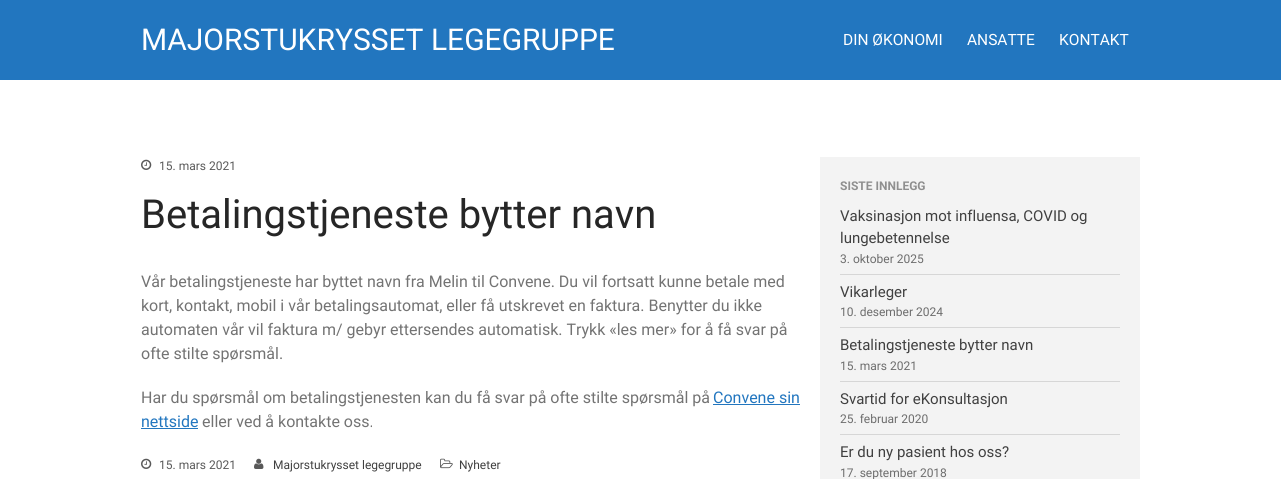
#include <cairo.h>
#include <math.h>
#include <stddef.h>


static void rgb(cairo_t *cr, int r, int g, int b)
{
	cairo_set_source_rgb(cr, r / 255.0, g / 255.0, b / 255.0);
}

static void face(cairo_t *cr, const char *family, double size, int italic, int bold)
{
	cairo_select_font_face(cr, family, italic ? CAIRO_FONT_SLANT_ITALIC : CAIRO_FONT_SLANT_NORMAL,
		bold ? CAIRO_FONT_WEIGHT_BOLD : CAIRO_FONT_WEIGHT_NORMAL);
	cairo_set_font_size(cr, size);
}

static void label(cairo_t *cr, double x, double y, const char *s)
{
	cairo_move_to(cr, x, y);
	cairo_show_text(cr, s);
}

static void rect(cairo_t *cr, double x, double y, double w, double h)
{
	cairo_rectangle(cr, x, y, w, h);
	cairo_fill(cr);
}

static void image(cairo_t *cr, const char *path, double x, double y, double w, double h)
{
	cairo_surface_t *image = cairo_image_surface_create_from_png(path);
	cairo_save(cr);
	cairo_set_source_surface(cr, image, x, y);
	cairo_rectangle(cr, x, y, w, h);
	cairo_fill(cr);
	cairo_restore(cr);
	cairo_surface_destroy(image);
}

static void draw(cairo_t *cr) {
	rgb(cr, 255, 255, 255);
	cairo_paint(cr);
	rgb(cr, 34, 118, 191);
	rect(cr, 0, 0, 1281, 80);
	face(cr, "Roboto", 30, 0, 0);
	rgb(cr, 255, 255, 255);
	label(cr, 141, 50, "MAJORSTUKRYSSET LEGEGRUPPE");
	face(cr, "Roboto", 15.5, 0, 0);
	label(cr, 843, 45, "DIN ØKONOMI");
	label(cr, 967, 45, "ANSATTE");
	label(cr, 1059, 45, "KONTAKT");
	image(cr, "image0.png", 141, 159, 11, 11);
	face(cr, "Roboto", 12, 0, 0);
	rgb(cr, 89, 89, 89);
	label(cr, 159, 170, "15. mars 2021");
	face(cr, "Roboto", 40, 0, 0);
	rgb(cr, 38, 38, 38);
	label(cr, 141, 228, "Betalingstjeneste bytter navn");
	face(cr, "Roboto", 16, 0, 0);
	rgb(cr, 115, 115, 115);
	label(cr, 141, 287, "Vår betalingstjeneste har byttet navn fra Melin til Convene. Du vil fortsatt kunne betale med");
	label(cr, 141, 311, "kort, kontakt, mobil i vår betalingsautomat, eller få utskrevet en faktura. Benytter du ikke");
	label(cr, 141, 335, "automaten vår vil faktura m/ gebyr ettersendes automatisk. Trykk «les mer» for å få svar på");
	label(cr, 141, 359, "ofte stilte spørsmål.");
	label(cr, 141, 403, "Har du spørsmål om betalingstjenesten kan du få svar på ofte stilte spørsmål på");
	rgb(cr, 34, 118, 191);
	label(cr, 713, 403, "Convene sin");
	rect(cr, 713, 404, 87, 1);
	label(cr, 141, 427, "nettside");
	rect(cr, 141, 428, 57, 1);
	rgb(cr, 115, 115, 115);
	label(cr, 202, 427, "eller ved å kontakte oss.");
	image(cr, "image0.png", 141, 458, 11, 11);
	face(cr, "Roboto", 12, 0, 0);
	rgb(cr, 89, 89, 89);
	label(cr, 159, 469, "15. mars 2021");
	image(cr, "image1.png", 254, 458, 10, 11);
	rgb(cr, 64, 64, 64);
	label(cr, 273, 469, "Majorstukrysset legegruppe");
	image(cr, "image2.png", 440, 458, 13, 11);
	label(cr, 459, 469, "Nyheter");
	rgb(cr, 243, 243, 243);
	rect(cr, 820, 157, 320, 322);
	face(cr, "Roboto", 12, 0, 1);
	rgb(cr, 143, 143, 143);
	label(cr, 840, 190, "SISTE INNLEGG");
	rgb(cr, 214, 214, 214);
	rect(cr, 840, 274, 280, 1);
	face(cr, "Roboto", 15, 0, 0);
	rgb(cr, 64, 64, 64);
	label(cr, 840, 221, "Vaksinasjon mot influensa, COVID og");
	label(cr, 840, 243, "lungebetennelse");
	face(cr, "Roboto", 12, 0, 0);
	rgb(cr, 109, 109, 109);
	label(cr, 840, 263, "3. oktober 2025");
	rgb(cr, 214, 214, 214);
	rect(cr, 840, 327, 280, 1);
	face(cr, "Roboto", 15, 0, 0);
	rgb(cr, 64, 64, 64);
	label(cr, 840, 297, "Vikarleger");
	face(cr, "Roboto", 12, 0, 0);
	rgb(cr, 109, 109, 109);
	label(cr, 840, 316, "10. desember 2024");
	rgb(cr, 214, 214, 214);
	rect(cr, 840, 381, 280, 1);
	face(cr, "Roboto", 15, 0, 0);
	rgb(cr, 64, 64, 64);
	label(cr, 840, 350, "Betalingstjeneste bytter navn");
	face(cr, "Roboto", 12, 0, 0);
	rgb(cr, 109, 109, 109);
	label(cr, 840, 370, "15. mars 2021");
	rgb(cr, 214, 214, 214);
	rect(cr, 840, 434, 280, 1);
	face(cr, "Roboto", 15, 0, 0);
	rgb(cr, 64, 64, 64);
	label(cr, 840, 404, "Svartid for eKonsultasjon");
	face(cr, "Roboto", 12, 0, 0);
	rgb(cr, 109, 109, 109);
	label(cr, 840, 423, "25. februar 2020");
	face(cr, "Roboto", 15, 0, 0);
	rgb(cr, 64, 64, 64);
	label(cr, 840, 457, "Er du ny pasient hos oss?");
	face(cr, "Roboto", 12, 0, 0);
	rgb(cr, 109, 109, 109);
	label(cr, 840, 477, "17. september 2018");
}

int main(void) {
	cairo_surface_t *surface = cairo_image_surface_create(CAIRO_FORMAT_RGB24, 1281, 479);
	cairo_t *cr = cairo_create(surface);
	cairo_font_options_t *options = cairo_font_options_create();
	cairo_font_options_set_hint_metrics(options, CAIRO_HINT_METRICS_OFF);
	cairo_font_options_set_hint_style(options, CAIRO_HINT_STYLE_NONE);
	cairo_set_font_options(cr, options);
	cairo_set_miter_limit(cr, 4);
	draw(cr);
	cairo_surface_write_to_png(surface, "render.png");
	cairo_font_options_destroy(options);
	cairo_destroy(cr);
	cairo_surface_destroy(surface);
	return 0;
}
